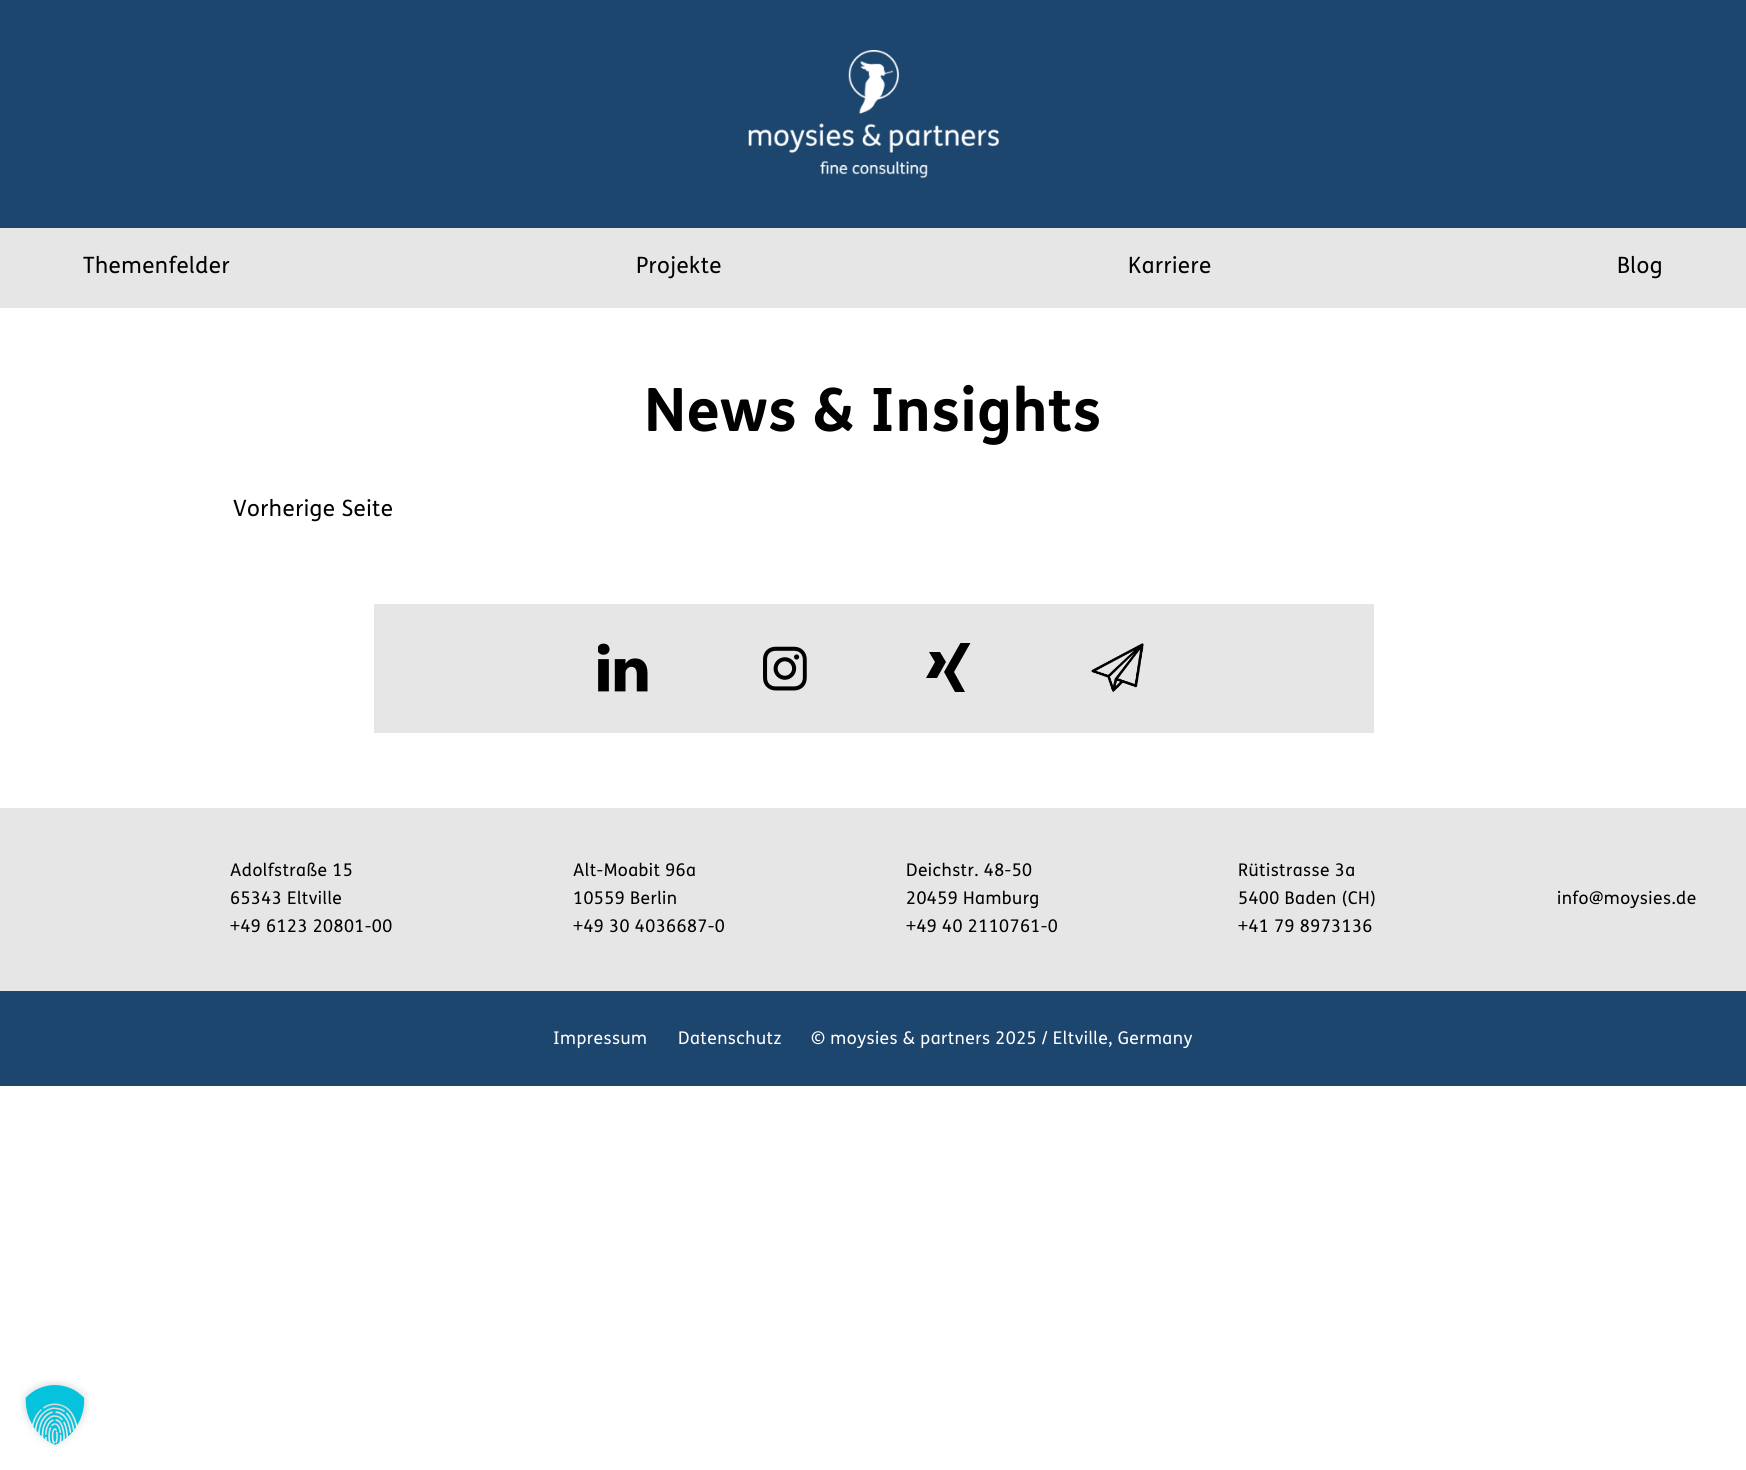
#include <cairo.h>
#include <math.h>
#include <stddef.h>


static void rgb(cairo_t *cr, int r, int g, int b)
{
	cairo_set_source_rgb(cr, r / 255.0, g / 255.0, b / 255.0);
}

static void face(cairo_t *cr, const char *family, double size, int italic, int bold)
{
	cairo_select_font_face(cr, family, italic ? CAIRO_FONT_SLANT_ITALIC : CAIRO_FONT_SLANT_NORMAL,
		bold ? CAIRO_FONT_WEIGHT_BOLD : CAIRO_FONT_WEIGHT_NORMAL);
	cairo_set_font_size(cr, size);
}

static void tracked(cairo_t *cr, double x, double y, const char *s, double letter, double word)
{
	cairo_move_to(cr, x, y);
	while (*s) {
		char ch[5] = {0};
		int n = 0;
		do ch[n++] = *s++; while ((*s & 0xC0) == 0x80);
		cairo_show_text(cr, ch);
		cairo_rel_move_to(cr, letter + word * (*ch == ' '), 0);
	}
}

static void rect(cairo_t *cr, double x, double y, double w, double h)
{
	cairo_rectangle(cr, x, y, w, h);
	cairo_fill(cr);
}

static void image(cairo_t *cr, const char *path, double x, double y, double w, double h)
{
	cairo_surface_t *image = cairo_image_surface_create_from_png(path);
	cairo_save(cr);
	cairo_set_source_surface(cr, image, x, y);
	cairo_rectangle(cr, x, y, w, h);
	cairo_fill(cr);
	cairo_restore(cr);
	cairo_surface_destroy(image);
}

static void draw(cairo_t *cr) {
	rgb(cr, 255, 255, 255);
	cairo_paint(cr);
	rgb(cr, 29, 70, 110);
	rect(cr, 0, 0, 1746, 228);
	image(cr, "image0.png", 748, 50, 251, 128);
	rgb(cr, 230, 230, 230);
	rect(cr, 0, 228, 1746, 80);
	face(cr, "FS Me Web", 22.5, 0, 0);
	rgb(cr, 0, 0, 0);
	tracked(cr, 83, 273, "Themenfelder", 0.45, 0);
	tracked(cr, 636, 273, "Projekte", 0.45, 0);
	tracked(cr, 1128, 273, "Karriere", 0.45, 0);
	tracked(cr, 1617, 273, "Blog", 0.45, 0);
	face(cr, "FS Me Web", 59.75, 0, 1);
	tracked(cr, 644, 431, "News & Insights", 0.45, 0);
	face(cr, "FS Me Web", 22.5, 0, 0);
	tracked(cr, 233, 516, "Vorherige Seite", 0.45, 0);
	rgb(cr, 230, 230, 230);
	rect(cr, 374, 604, 1000, 129);
	image(cr, "image1.png", 598, 643, 50, 49);
	image(cr, "image2.png", 763, 646, 44, 45);
	cairo_save(cr);
	cairo_rectangle(cr, 924, 643, 50, 50);
	cairo_clip(cr);
	rgb(cr, 0, 0, 0);
	cairo_new_path(cr);
	cairo_move_to(cr, 955, 692);
	cairo_line_to(cr, 944, 672);
	cairo_line_to(cr, 961, 642);
	cairo_line_to(cr, 971, 642);
	cairo_line_to(cr, 954, 672);
	cairo_line_to(cr, 965, 692);
	cairo_close_path(cr);
	cairo_move_to(cr, 940, 652);
	cairo_line_to(cr, 929, 652);
	cairo_line_to(cr, 935, 662);
	cairo_line_to(cr, 926, 678);
	cairo_line_to(cr, 937, 678);
	cairo_line_to(cr, 946, 662);
	cairo_close_path(cr);
	cairo_fill(cr);
	cairo_restore(cr);
	image(cr, "image3.png", 1091, 643, 53, 49);
	rect(cr, 0, 808, 1746, 183);
	face(cr, "FS Me Web", 17.5, 0, 0);
	rgb(cr, 0, 0, 0);
	tracked(cr, 230, 876, "Adolfstraße 15", 0.45, 0);
	tracked(cr, 230, 904, "65343 Eltville", 0.45, 0);
	tracked(cr, 230, 932, "+49 6123 20801-00", 0.45, 0);
	tracked(cr, 573, 876, "Alt-Moabit 96a", 0.45, 0);
	tracked(cr, 573, 904, "10559 Berlin", 0.45, 0);
	tracked(cr, 573, 932, "+49 30 4036687-0", 0.45, 0);
	tracked(cr, 906, 876, "Deichstr. 48-50", 0.45, 0);
	tracked(cr, 906, 904, "20459 Hamburg", 0.45, 0);
	tracked(cr, 906, 932, "+49 40 2110761-0", 0.45, 0);
	tracked(cr, 1238, 876, "Rütistrasse 3a", 0.45, 0);
	tracked(cr, 1238, 904, "5400 Baden (CH)", 0.45, 0);
	tracked(cr, 1238, 932, "+41 79 8973136", 0.45, 0);
	tracked(cr, 1557, 904, "info@moysies.de", 0.45, 0);
	rgb(cr, 29, 70, 110);
	rect(cr, 0, 991, 1746, 95);
	rgb(cr, 255, 255, 255);
	tracked(cr, 553, 1044, "Impressum", 0.45, 0);
	tracked(cr, 678, 1044, "Datenschutz", 0.45, 0);
	tracked(cr, 811, 1044, "© moysies & partners 2025 / Eltville, Germany", 0.45, 0);
	image(cr, "image4.png", 20, 1380, 69, 68);
}

int main(void) {
	cairo_surface_t *surface = cairo_image_surface_create(CAIRO_FORMAT_RGB24, 1746, 1470);
	cairo_t *cr = cairo_create(surface);
	cairo_font_options_t *options = cairo_font_options_create();
	cairo_font_options_set_hint_metrics(options, CAIRO_HINT_METRICS_OFF);
	cairo_font_options_set_hint_style(options, CAIRO_HINT_STYLE_NONE);
	cairo_set_font_options(cr, options);
	cairo_set_miter_limit(cr, 4);
	draw(cr);
	cairo_surface_write_to_png(surface, "render.png");
	cairo_font_options_destroy(options);
	cairo_destroy(cr);
	cairo_surface_destroy(surface);
	return 0;
}
